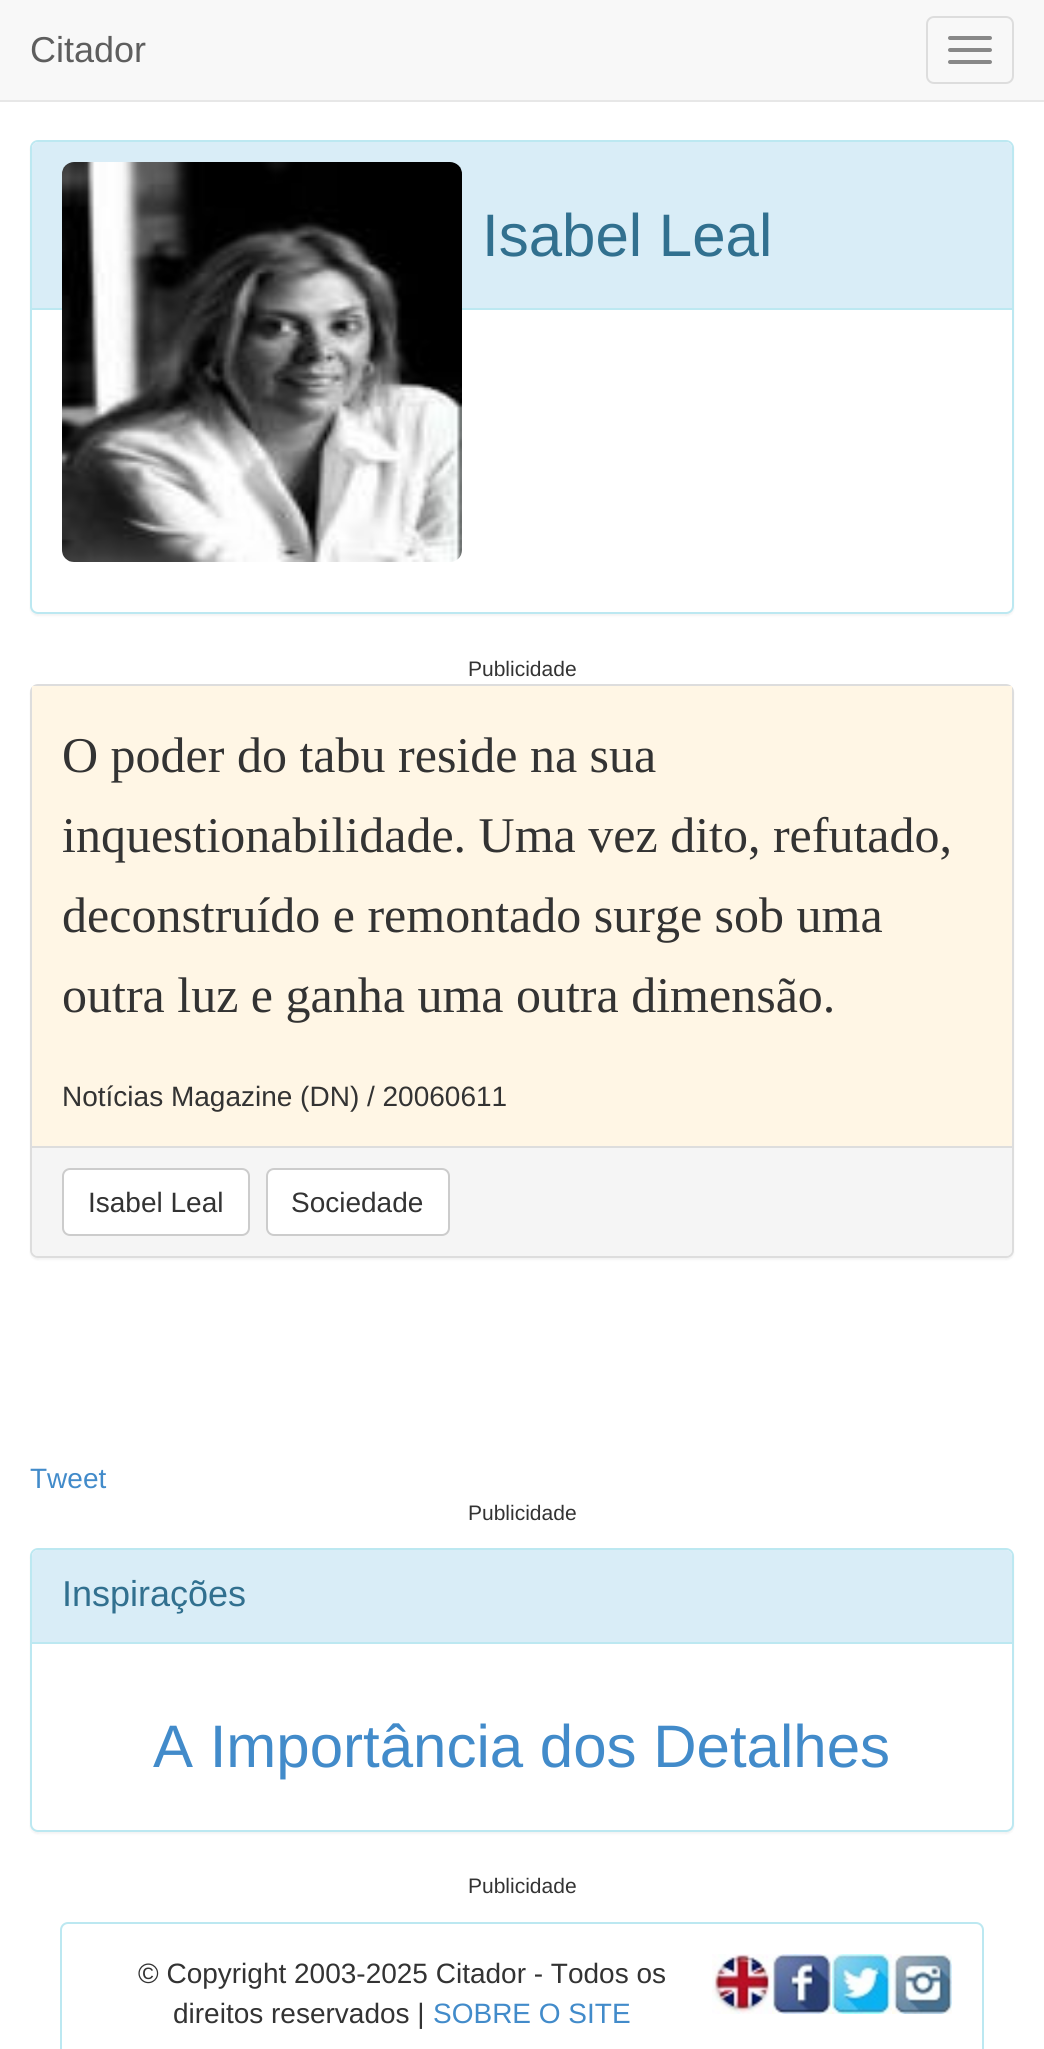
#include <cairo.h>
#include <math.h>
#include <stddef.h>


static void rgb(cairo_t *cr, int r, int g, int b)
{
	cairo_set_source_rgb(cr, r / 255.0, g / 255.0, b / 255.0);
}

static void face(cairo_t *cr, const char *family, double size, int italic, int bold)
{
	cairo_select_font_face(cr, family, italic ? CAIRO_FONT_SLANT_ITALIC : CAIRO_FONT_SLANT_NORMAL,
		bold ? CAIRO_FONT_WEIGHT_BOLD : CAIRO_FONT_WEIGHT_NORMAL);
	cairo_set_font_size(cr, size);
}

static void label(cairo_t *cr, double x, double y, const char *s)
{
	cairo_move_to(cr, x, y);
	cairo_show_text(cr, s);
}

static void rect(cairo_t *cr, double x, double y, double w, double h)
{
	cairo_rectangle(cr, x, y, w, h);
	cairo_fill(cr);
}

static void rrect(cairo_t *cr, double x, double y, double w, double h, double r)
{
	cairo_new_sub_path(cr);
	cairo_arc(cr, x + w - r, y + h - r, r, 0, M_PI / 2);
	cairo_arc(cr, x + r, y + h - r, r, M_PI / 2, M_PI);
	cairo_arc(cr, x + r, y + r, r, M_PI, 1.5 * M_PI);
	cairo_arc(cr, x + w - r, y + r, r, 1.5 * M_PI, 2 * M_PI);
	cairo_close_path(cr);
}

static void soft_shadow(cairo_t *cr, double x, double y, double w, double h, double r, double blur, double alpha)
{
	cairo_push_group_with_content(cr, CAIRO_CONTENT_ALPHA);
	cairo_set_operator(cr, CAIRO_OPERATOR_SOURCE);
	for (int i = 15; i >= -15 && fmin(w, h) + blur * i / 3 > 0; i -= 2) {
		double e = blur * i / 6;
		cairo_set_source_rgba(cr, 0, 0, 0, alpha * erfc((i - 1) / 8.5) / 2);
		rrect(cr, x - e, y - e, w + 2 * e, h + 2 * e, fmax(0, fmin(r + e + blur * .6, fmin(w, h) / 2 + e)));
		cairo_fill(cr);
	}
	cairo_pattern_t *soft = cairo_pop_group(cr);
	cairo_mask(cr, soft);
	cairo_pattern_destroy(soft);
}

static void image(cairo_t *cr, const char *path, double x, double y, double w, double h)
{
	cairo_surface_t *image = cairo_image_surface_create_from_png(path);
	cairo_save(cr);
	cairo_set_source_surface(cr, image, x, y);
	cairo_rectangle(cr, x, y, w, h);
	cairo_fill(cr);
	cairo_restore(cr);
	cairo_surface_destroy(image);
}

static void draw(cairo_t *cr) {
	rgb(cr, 255, 255, 255);
	cairo_paint(cr);
	rgb(cr, 248, 248, 248);
	rect(cr, 0, 0, 1044, 100);
	rgb(cr, 231, 231, 231);
	rect(cr, 0, 100, 1044, 2);
	face(cr, "Liberation Sans", 36, 0, 0);
	rgb(cr, 94, 94, 94);
	label(cr, 30, 62, "Citador");
	rrect(cr, 927, 17, 86, 66, 7);
	rgb(cr, 221, 221, 221);
	cairo_stroke(cr);
	rgb(cr, 136, 136, 136);
	rrect(cr, 948, 36, 44, 4, 2);
	cairo_fill(cr);
	rrect(cr, 948, 48, 44, 4, 2);
	cairo_fill(cr);
	rrect(cr, 948, 60, 44, 4, 2);
	cairo_fill(cr);
	rgb(cr, 0, 0, 0);
	soft_shadow(cr, 30, 142, 984, 474, 8, 1, 0.05);
	rgb(cr, 255, 255, 255);
	rrect(cr, 31, 141, 982, 472, 7);
	cairo_fill_preserve(cr);
	rgb(cr, 188, 232, 241);
	cairo_stroke(cr);
	rgb(cr, 217, 237, 247);
	cairo_new_path(cr);
	cairo_move_to(cr, 38, 142);
	cairo_line_to(cr, 1006, 142);
	cairo_curve_to(cr, 1009.5, 142, 1012, 144.5, 1012, 148);
	cairo_line_to(cr, 1012, 310);
	cairo_line_to(cr, 32, 310);
	cairo_line_to(cr, 32, 148);
	cairo_curve_to(cr, 32, 144.5, 34.5, 142, 38, 142);
	cairo_close_path(cr);
	cairo_fill(cr);
	rgb(cr, 188, 232, 241);
	rect(cr, 32, 308, 980, 2);
	image(cr, "image0.png", 62, 162, 400, 400);
	face(cr, "Liberation Sans", 60, 0, 0);
	rgb(cr, 49, 112, 143);
	label(cr, 482, 256, "Isabel Leal");
	face(cr, "Liberation Sans", 21, 0, 0);
	rgb(cr, 51, 51, 51);
	label(cr, 468, 676, "Publicidade");
	rgb(cr, 0, 0, 0);
	soft_shadow(cr, 30, 686, 984, 574, 8, 1, 0.05);
	rrect(cr, 31, 685, 982, 572, 7);
	rgb(cr, 221, 221, 221);
	cairo_stroke(cr);
	rgb(cr, 255, 246, 229);
	rect(cr, 32, 686, 980, 460);
	face(cr, "Liberation Serif", 50, 0, 0);
	rgb(cr, 51, 51, 51);
	label(cr, 62, 772, "O poder do tabu reside na sua");
	label(cr, 62, 852, "inquestionabilidade. Uma vez dito, refutado,");
	label(cr, 62, 932, "deconstruído e remontado surge sob uma");
	label(cr, 62, 1012, "outra luz e ganha uma outra dimensão.");
	face(cr, "Liberation Sans", 28, 0, 0);
	label(cr, 62, 1106, "Notícias Magazine (DN) / 20060611");
	rgb(cr, 245, 245, 245);
	cairo_new_path(cr);
	cairo_move_to(cr, 32, 1146);
	cairo_line_to(cr, 1012, 1146);
	cairo_line_to(cr, 1012, 1250);
	cairo_curve_to(cr, 1012, 1253.5, 1009.5, 1256, 1006, 1256);
	cairo_line_to(cr, 38, 1256);
	cairo_curve_to(cr, 34.5, 1256, 32, 1253.5, 32, 1250);
	cairo_close_path(cr);
	cairo_fill(cr);
	rgb(cr, 221, 221, 221);
	rect(cr, 32, 1146, 980, 2);
	rgb(cr, 255, 255, 255);
	rrect(cr, 63, 1169, 186, 66, 7);
	cairo_fill_preserve(cr);
	rgb(cr, 204, 204, 204);
	cairo_stroke(cr);
	rgb(cr, 51, 51, 51);
	label(cr, 88, 1212, "Isabel Leal");
	rgb(cr, 255, 255, 255);
	rrect(cr, 267, 1169, 182, 66, 7);
	cairo_fill_preserve(cr);
	rgb(cr, 204, 204, 204);
	cairo_stroke(cr);
	rgb(cr, 51, 51, 51);
	label(cr, 291, 1212, "Sociedade");
	rgb(cr, 66, 139, 202);
	label(cr, 30, 1488, "Tweet");
	face(cr, "Liberation Sans", 21, 0, 0);
	rgb(cr, 51, 51, 51);
	label(cr, 468, 1520, "Publicidade");
	rgb(cr, 0, 0, 0);
	soft_shadow(cr, 30, 1550, 984, 284, 8, 1, 0.05);
	rgb(cr, 255, 255, 255);
	rrect(cr, 31, 1549, 982, 282, 7);
	cairo_fill_preserve(cr);
	rgb(cr, 188, 232, 241);
	cairo_stroke(cr);
	rgb(cr, 217, 237, 247);
	cairo_new_path(cr);
	cairo_move_to(cr, 38, 1550);
	cairo_line_to(cr, 1006, 1550);
	cairo_curve_to(cr, 1009.5, 1550, 1012, 1552.5, 1012, 1556);
	cairo_line_to(cr, 1012, 1644);
	cairo_line_to(cr, 32, 1644);
	cairo_line_to(cr, 32, 1556);
	cairo_curve_to(cr, 32, 1552.5, 34.5, 1550, 38, 1550);
	cairo_close_path(cr);
	cairo_fill(cr);
	rgb(cr, 188, 232, 241);
	rect(cr, 32, 1642, 980, 2);
	face(cr, "Liberation Sans", 36, 0, 0);
	rgb(cr, 49, 112, 143);
	label(cr, 62, 1606, "Inspirações");
	face(cr, "Liberation Sans", 60, 0, 0);
	rgb(cr, 66, 139, 202);
	label(cr, 153, 1767, "A Importância dos Detalhes");
	face(cr, "Liberation Sans", 21, 0, 0);
	rgb(cr, 51, 51, 51);
	label(cr, 468, 1893, "Publicidade");
	rrect(cr, 61, 1923, 922, 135, 7);
	rgb(cr, 188, 232, 241);
	cairo_stroke(cr);
	face(cr, "Liberation Sans", 28, 0, 0);
	rgb(cr, 51, 51, 51);
	label(cr, 138, 1983, "© Copyright 2003-2025 Citador - Todos os");
	image(cr, "image1.png", 712, 1954, 60, 60);
	image(cr, "image2.png", 772, 1954, 60, 60);
	image(cr, "image3.png", 832, 1954, 60, 60);
	image(cr, "image4.png", 892, 1954, 60, 60);
	label(cr, 173, 2023, "direitos reservados |");
	rgb(cr, 66, 139, 202);
	label(cr, 433, 2023, "SOBRE O SITE");
}

int main(void) {
	cairo_surface_t *surface = cairo_image_surface_create(CAIRO_FORMAT_RGB24, 1044, 2049);
	cairo_t *cr = cairo_create(surface);
	cairo_font_options_t *options = cairo_font_options_create();
	cairo_font_options_set_hint_metrics(options, CAIRO_HINT_METRICS_OFF);
	cairo_font_options_set_hint_style(options, CAIRO_HINT_STYLE_NONE);
	cairo_set_font_options(cr, options);
	cairo_set_miter_limit(cr, 4);
	draw(cr);
	cairo_surface_write_to_png(surface, "render.png");
	cairo_font_options_destroy(options);
	cairo_destroy(cr);
	cairo_surface_destroy(surface);
	return 0;
}
